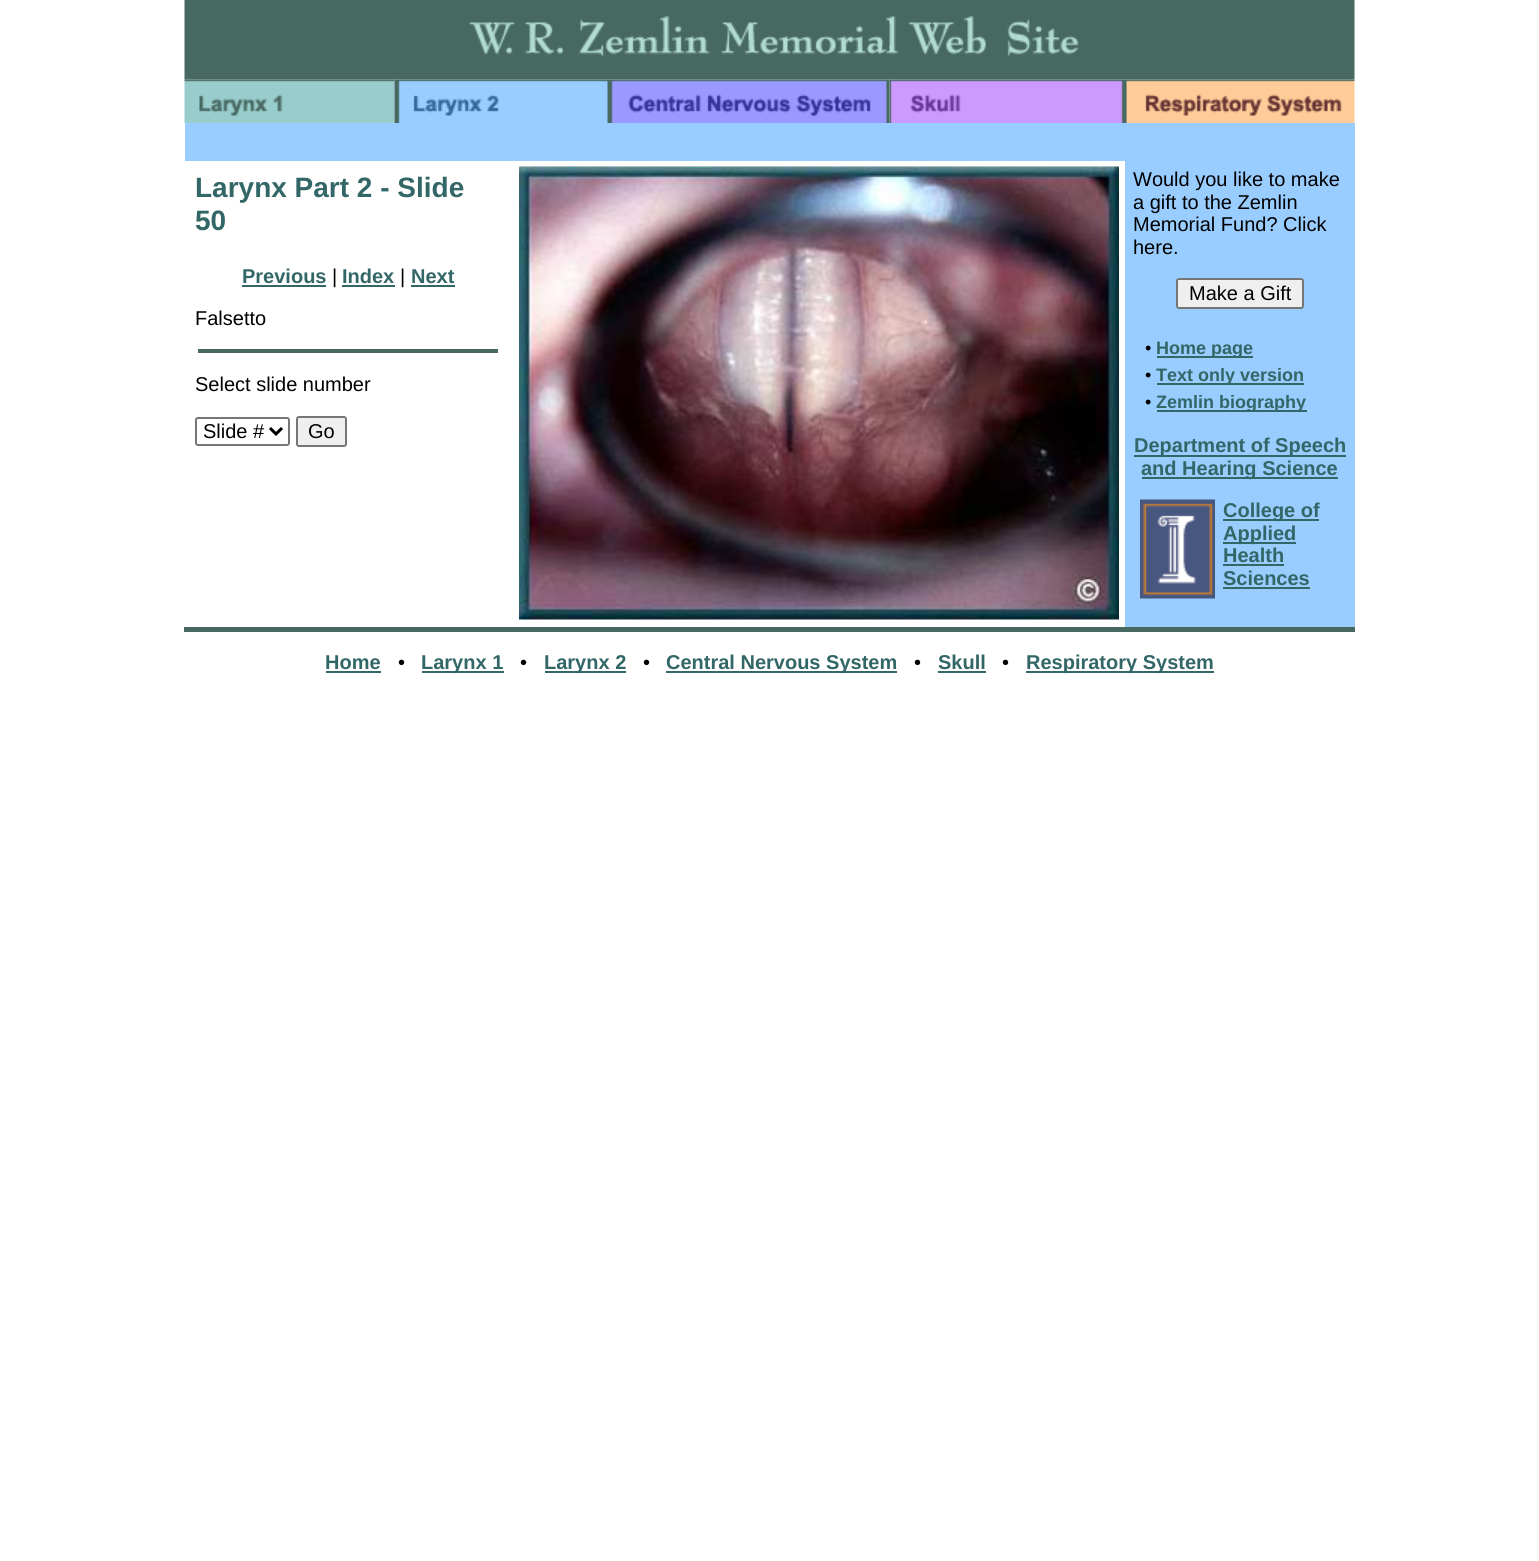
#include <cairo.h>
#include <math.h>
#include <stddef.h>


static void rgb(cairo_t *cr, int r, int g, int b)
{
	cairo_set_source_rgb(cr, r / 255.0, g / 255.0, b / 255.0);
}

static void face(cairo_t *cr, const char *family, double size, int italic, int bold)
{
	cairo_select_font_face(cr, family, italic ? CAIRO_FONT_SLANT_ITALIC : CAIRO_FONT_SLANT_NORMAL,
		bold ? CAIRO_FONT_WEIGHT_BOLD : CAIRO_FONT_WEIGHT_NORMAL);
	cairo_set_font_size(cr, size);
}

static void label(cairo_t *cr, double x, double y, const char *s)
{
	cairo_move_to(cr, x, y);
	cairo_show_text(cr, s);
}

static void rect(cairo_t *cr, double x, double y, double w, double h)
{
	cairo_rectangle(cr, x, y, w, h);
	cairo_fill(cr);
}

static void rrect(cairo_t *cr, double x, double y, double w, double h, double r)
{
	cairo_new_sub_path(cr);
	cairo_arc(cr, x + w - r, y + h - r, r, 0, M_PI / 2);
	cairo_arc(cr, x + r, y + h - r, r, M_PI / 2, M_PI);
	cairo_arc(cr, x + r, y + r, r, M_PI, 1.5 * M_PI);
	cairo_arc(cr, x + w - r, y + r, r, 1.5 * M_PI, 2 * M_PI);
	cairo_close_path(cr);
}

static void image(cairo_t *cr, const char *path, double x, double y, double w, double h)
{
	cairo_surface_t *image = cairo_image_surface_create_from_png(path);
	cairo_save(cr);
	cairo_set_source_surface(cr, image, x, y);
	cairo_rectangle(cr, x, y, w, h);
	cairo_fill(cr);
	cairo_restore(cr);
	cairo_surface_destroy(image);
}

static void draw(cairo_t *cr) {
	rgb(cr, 255, 255, 255);
	cairo_paint(cr);
	image(cr, "image0.png", 184, 0, 1171, 80);
	image(cr, "image1.png", 184, 79, 211, 44);
	image(cr, "image2.png", 394, 79, 2, 44);
	image(cr, "image3.png", 396, 79, 213, 44);
	image(cr, "image4.png", 609, 79, 281, 44);
	image(cr, "image5.png", 889, 79, 236, 44);
	image(cr, "image6.png", 1125, 79, 230, 44);
	rgb(cr, 153, 204, 255);
	rect(cr, 185, 123, 1170, 38);
	face(cr, "Liberation Sans", 28, 0, 1);
	rgb(cr, 51, 102, 102);
	label(cr, 195, 197, "Larynx Part 2 - Slide");
	label(cr, 195, 230, "50");
	face(cr, "Liberation Sans", 20, 0, 1);
	label(cr, 242, 283, "Previous");
	rect(cr, 242, 285, 84, 2);
	face(cr, "Liberation Sans", 20, 0, 0);
	rgb(cr, 0, 0, 0);
	label(cr, 332, 283, "|");
	face(cr, "Liberation Sans", 20, 0, 1);
	rgb(cr, 51, 102, 102);
	label(cr, 342, 283, "Index");
	rect(cr, 342, 285, 53, 2);
	face(cr, "Liberation Sans", 20, 0, 0);
	rgb(cr, 0, 0, 0);
	label(cr, 400, 283, "|");
	face(cr, "Liberation Sans", 20, 0, 1);
	rgb(cr, 51, 102, 102);
	label(cr, 411, 283, "Next");
	rect(cr, 411, 285, 44, 2);
	face(cr, "Liberation Sans", 20, 0, 0);
	rgb(cr, 0, 0, 0);
	label(cr, 195, 325, "Falsetto");
	rgb(cr, 72, 105, 98);
	rect(cr, 198, 349, 300, 4);
	rgb(cr, 0, 0, 0);
	label(cr, 195, 391, "Select slide number");
	rrect(cr, 196, 418, 93, 27, 2);
	rgb(cr, 118, 118, 118);
	cairo_stroke(cr);
	cairo_new_path(cr);
	cairo_move_to(cr, 270, 428);
	cairo_line_to(cr, 276, 434);
	cairo_line_to(cr, 282, 428);
	rgb(cr, 0, 0, 0);
	cairo_set_line_width(cr, 3);
	cairo_stroke(cr);
	label(cr, 203, 438, "Slide #");
	rgb(cr, 239, 239, 239);
	rrect(cr, 297, 417, 49, 29, 2);
	cairo_fill_preserve(cr);
	rgb(cr, 118, 118, 118);
	cairo_set_line_width(cr, 2);
	cairo_stroke(cr);
	rgb(cr, 0, 0, 0);
	label(cr, 308, 438, "Go");
	image(cr, "image7.png", 519, 166, 600, 454);
	rgb(cr, 153, 204, 255);
	rect(cr, 1125, 161, 230, 466);
	rgb(cr, 0, 0, 0);
	label(cr, 1133, 186, "Would you like to make");
	label(cr, 1133, 209, "a gift to the Zemlin");
	label(cr, 1133, 231, "Memorial Fund? Click");
	label(cr, 1133, 254, "here.");
	rgb(cr, 239, 239, 239);
	rrect(cr, 1177, 279, 126, 29, 2);
	cairo_fill_preserve(cr);
	rgb(cr, 118, 118, 118);
	cairo_stroke(cr);
	rgb(cr, 0, 0, 0);
	label(cr, 1189, 300, "Make a Gift");
	face(cr, "Liberation Sans", 18, 0, 0);
	label(cr, 1145, 354, "•");
	rgb(cr, 51, 102, 102);
	rect(cr, 1157, 356, 96, 2);
	face(cr, "Liberation Sans", 18, 0, 1);
	label(cr, 1156, 354, "Home page");
	face(cr, "Liberation Sans", 18, 0, 0);
	rgb(cr, 0, 0, 0);
	label(cr, 1145, 381, "•");
	rgb(cr, 51, 102, 102);
	rect(cr, 1157, 383, 147, 2);
	face(cr, "Liberation Sans", 18, 0, 1);
	label(cr, 1156, 381, "Text only version");
	face(cr, "Liberation Sans", 18, 0, 0);
	rgb(cr, 0, 0, 0);
	label(cr, 1145, 408, "•");
	rgb(cr, 51, 102, 102);
	rect(cr, 1157, 410, 150, 2);
	face(cr, "Liberation Sans", 18, 0, 1);
	label(cr, 1156, 408, "Zemlin biography");
	rect(cr, 1134, 455, 212, 2);
	face(cr, "Liberation Sans", 20, 0, 1);
	label(cr, 1134, 452, "Department of Speech");
	rect(cr, 1142, 477, 196, 2);
	label(cr, 1141, 475, "and Hearing Science");
	image(cr, "image8.png", 1140, 499, 75, 100);
	rect(cr, 1223, 519, 96, 2);
	label(cr, 1223, 517, "College of");
	rect(cr, 1223, 542, 73, 2);
	label(cr, 1223, 540, "Applied");
	label(cr, 1223, 562, "Health");
	rect(cr, 1223, 564, 61, 2);
	label(cr, 1223, 585, "Sciences");
	rect(cr, 1223, 587, 87, 2);
	rgb(cr, 72, 105, 98);
	rect(cr, 184, 627, 1171, 5);
	rgb(cr, 51, 102, 102);
	label(cr, 325, 669, "Home");
	rect(cr, 326, 671, 55, 2);
	face(cr, "Liberation Sans", 20, 0, 0);
	rgb(cr, 0, 0, 0);
	label(cr, 398, 669, "•");
	rgb(cr, 51, 102, 102);
	rect(cr, 422, 671, 82, 2);
	face(cr, "Liberation Sans", 20, 0, 1);
	label(cr, 421, 669, "Larynx 1");
	face(cr, "Liberation Sans", 20, 0, 0);
	rgb(cr, 0, 0, 0);
	label(cr, 520, 669, "•");
	rgb(cr, 51, 102, 102);
	rect(cr, 545, 671, 81, 2);
	face(cr, "Liberation Sans", 20, 0, 1);
	label(cr, 544, 669, "Larynx 2");
	face(cr, "Liberation Sans", 20, 0, 0);
	rgb(cr, 0, 0, 0);
	label(cr, 643, 669, "•");
	rgb(cr, 51, 102, 102);
	rect(cr, 666, 671, 231, 2);
	face(cr, "Liberation Sans", 20, 0, 1);
	label(cr, 666, 669, "Central Nervous System");
	face(cr, "Liberation Sans", 20, 0, 0);
	rgb(cr, 0, 0, 0);
	label(cr, 914, 669, "•");
	face(cr, "Liberation Sans", 20, 0, 1);
	rgb(cr, 51, 102, 102);
	label(cr, 938, 669, "Skull");
	rect(cr, 938, 671, 48, 2);
	face(cr, "Liberation Sans", 20, 0, 0);
	rgb(cr, 0, 0, 0);
	label(cr, 1002, 669, "•");
	rgb(cr, 51, 102, 102);
	rect(cr, 1026, 671, 188, 2);
	face(cr, "Liberation Sans", 20, 0, 1);
	label(cr, 1026, 669, "Respiratory System");
}

int main(void) {
	cairo_surface_t *surface = cairo_image_surface_create(CAIRO_FORMAT_RGB24, 1539, 1561);
	cairo_t *cr = cairo_create(surface);
	cairo_font_options_t *options = cairo_font_options_create();
	cairo_font_options_set_hint_metrics(options, CAIRO_HINT_METRICS_OFF);
	cairo_font_options_set_hint_style(options, CAIRO_HINT_STYLE_NONE);
	cairo_set_font_options(cr, options);
	cairo_set_miter_limit(cr, 4);
	draw(cr);
	cairo_surface_write_to_png(surface, "render.png");
	cairo_font_options_destroy(options);
	cairo_destroy(cr);
	cairo_surface_destroy(surface);
	return 0;
}
